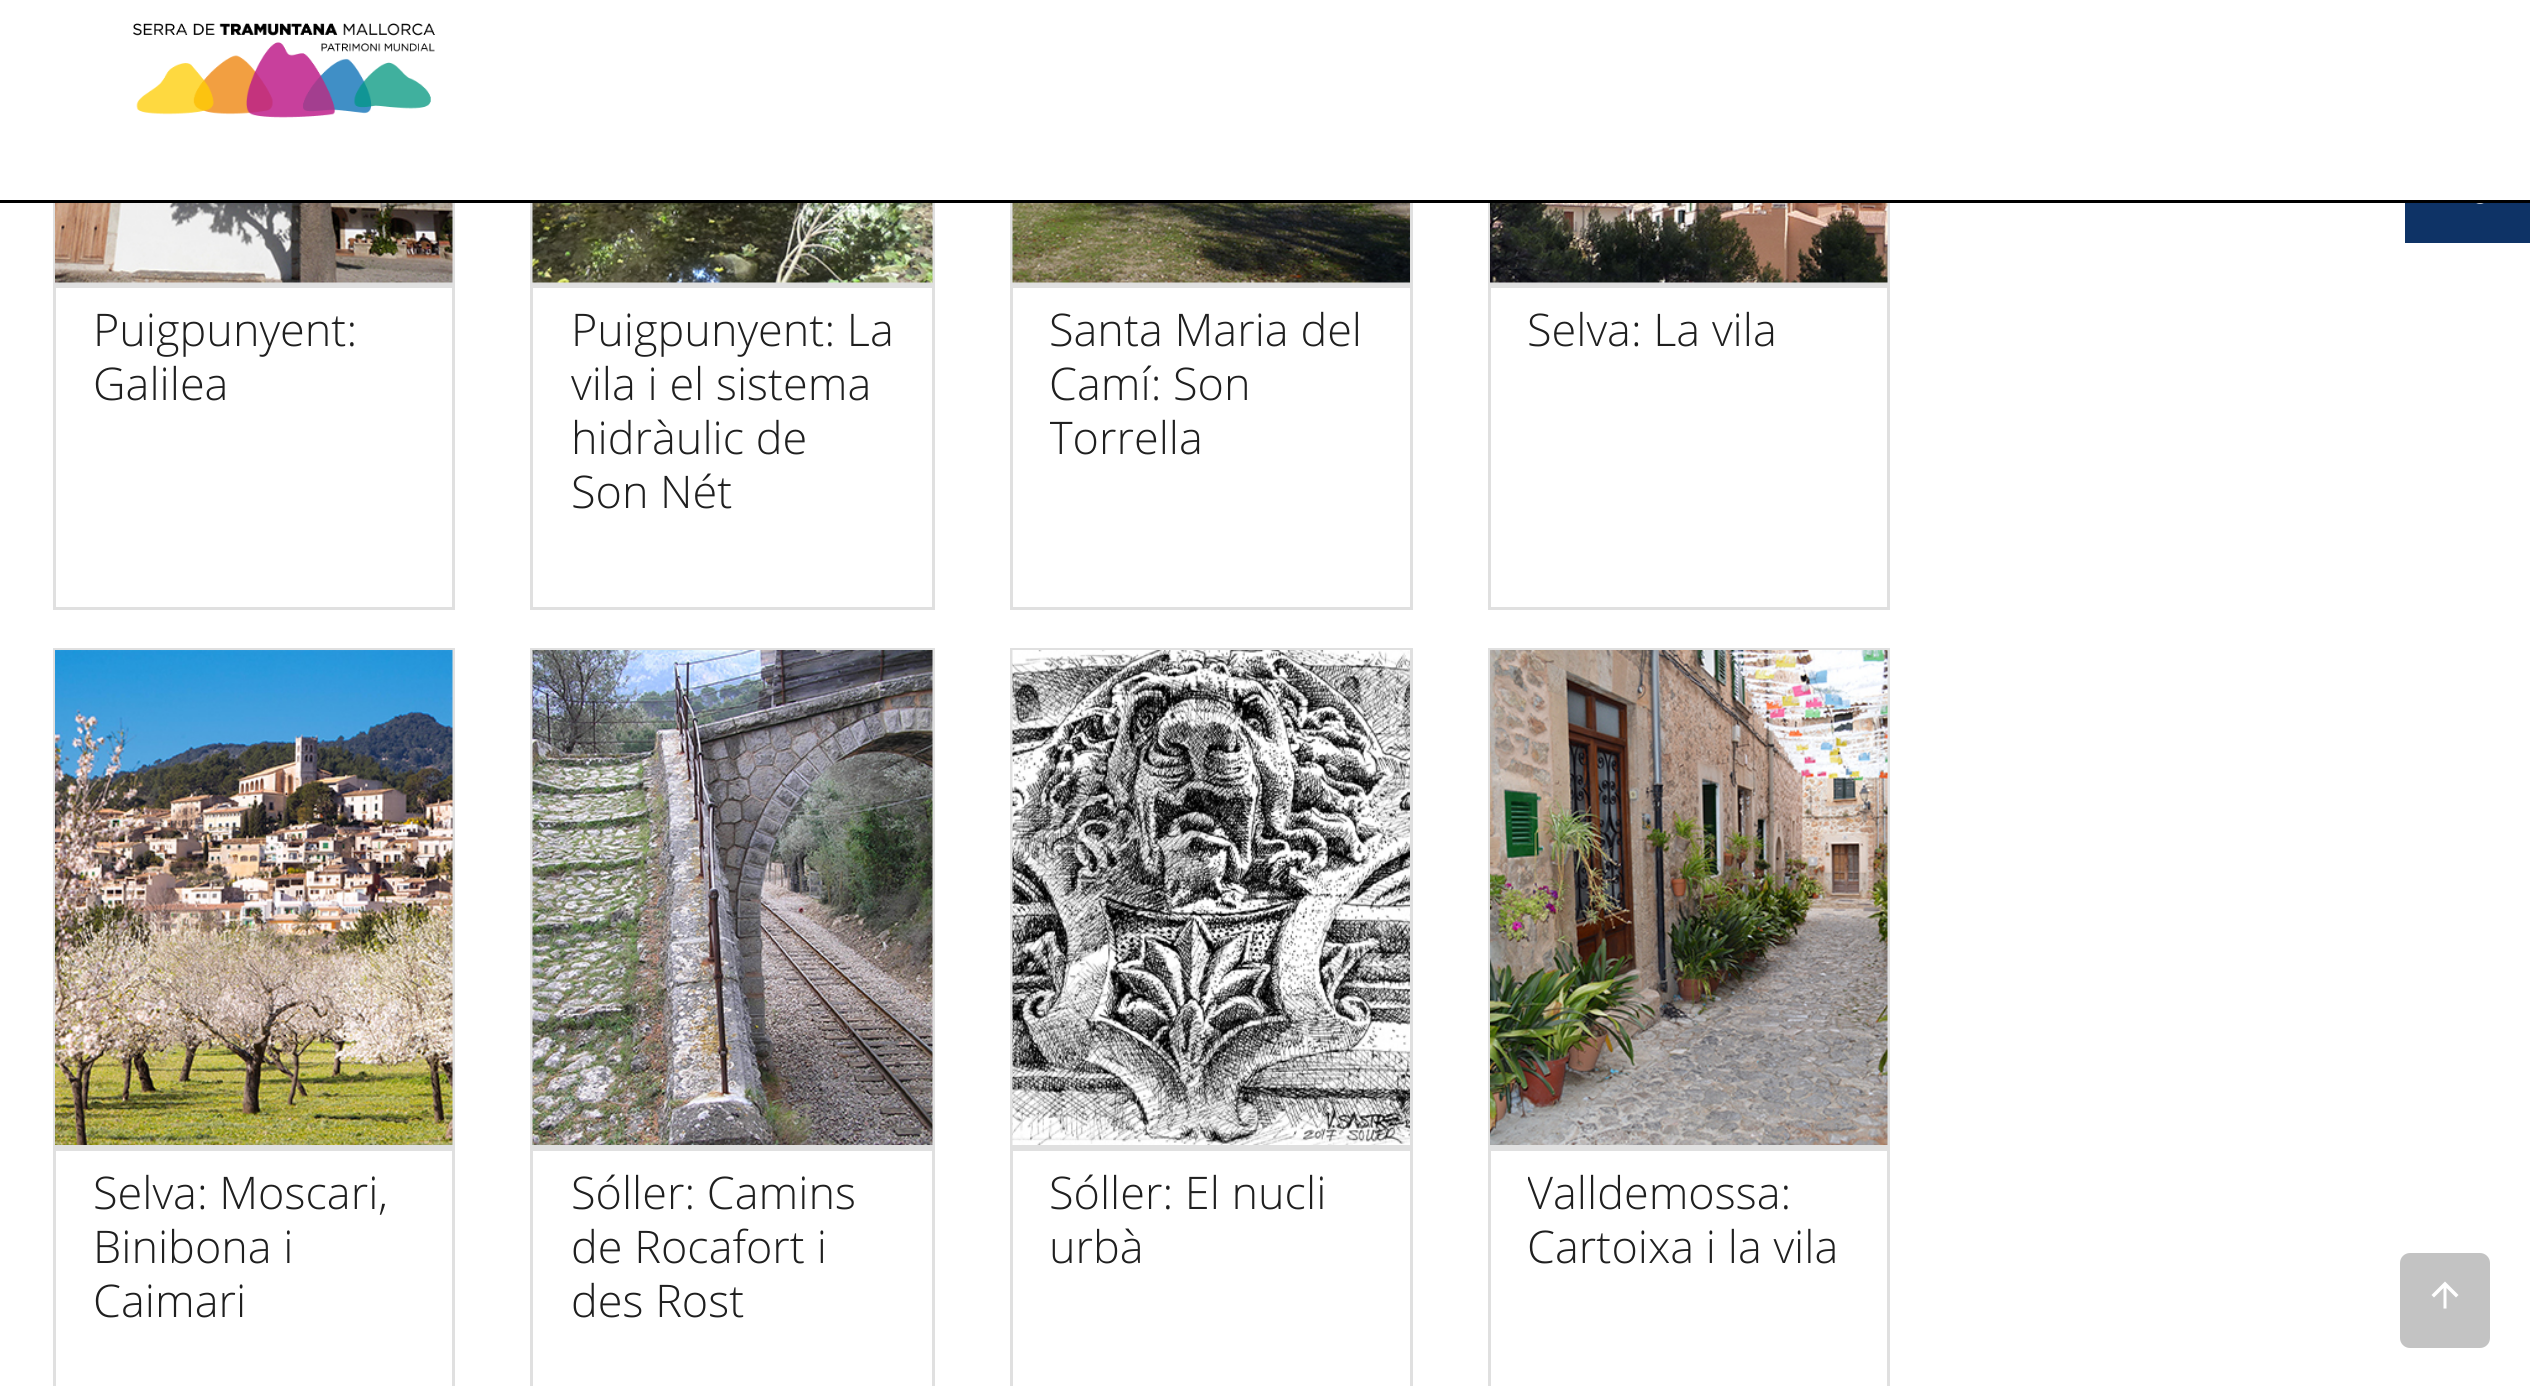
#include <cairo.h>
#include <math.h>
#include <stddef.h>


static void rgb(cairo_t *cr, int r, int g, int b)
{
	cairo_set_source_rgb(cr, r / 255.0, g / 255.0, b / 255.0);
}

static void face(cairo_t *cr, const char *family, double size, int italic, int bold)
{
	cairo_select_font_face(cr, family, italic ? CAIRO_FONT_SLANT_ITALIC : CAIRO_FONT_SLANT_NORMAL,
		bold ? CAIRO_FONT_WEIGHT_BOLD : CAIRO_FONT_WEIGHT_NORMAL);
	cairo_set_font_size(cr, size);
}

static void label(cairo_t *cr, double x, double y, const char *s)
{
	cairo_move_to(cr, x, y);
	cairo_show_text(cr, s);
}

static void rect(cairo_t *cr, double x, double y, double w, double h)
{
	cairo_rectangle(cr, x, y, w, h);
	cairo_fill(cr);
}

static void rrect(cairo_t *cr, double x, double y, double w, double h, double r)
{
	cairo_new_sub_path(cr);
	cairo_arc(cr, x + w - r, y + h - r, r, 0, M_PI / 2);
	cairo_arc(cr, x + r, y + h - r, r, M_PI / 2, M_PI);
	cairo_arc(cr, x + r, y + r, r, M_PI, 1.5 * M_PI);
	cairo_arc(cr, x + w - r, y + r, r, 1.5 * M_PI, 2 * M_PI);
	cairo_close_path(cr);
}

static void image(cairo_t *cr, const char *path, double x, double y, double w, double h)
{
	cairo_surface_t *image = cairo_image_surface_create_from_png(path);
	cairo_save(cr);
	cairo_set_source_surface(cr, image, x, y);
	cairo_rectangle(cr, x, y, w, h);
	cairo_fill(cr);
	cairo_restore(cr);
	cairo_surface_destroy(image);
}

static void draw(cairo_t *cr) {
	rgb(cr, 255, 255, 255);
	cairo_paint(cr);
	cairo_rectangle(cr, 54.5, -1.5, 399, 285);
	rgb(cr, 224, 224, 224);
	cairo_set_line_width(cr, 3);
	cairo_stroke(cr);
	cairo_rectangle(cr, 531.5, -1.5, 402, 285);
	cairo_stroke(cr);
	cairo_rectangle(cr, 1011.5, -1.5, 400, 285);
	cairo_stroke(cr);
	cairo_rectangle(cr, 1489.5, -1.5, 399, 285);
	cairo_stroke(cr);
	rgb(cr, 255, 255, 255);
	rect(cr, 53, 0, 1837, 200);
	rgb(cr, 0, 0, 0);
	rect(cr, 0, 200, 2530, 3);
	image(cr, "image0.png", 133, 23, 302, 95);
	rgb(cr, 14, 51, 102);
	rect(cr, 2405, 203, 125, 40);
	image(cr, "image1.png", 2476, 203, 8, 1);
	image(cr, "image2.png", 55, 203, 398, 80);
	cairo_rectangle(cr, 54.5, 286.5, 399, 322);
	rgb(cr, 224, 224, 224);
	cairo_stroke(cr);
	face(cr, "Open Sans Light", 45, 0, 0);
	rgb(cr, 31, 31, 31);
	label(cr, 93, 346, "Puigpunyent:");
	label(cr, 93, 400, "Galilea");
	image(cr, "image3.png", 532, 203, 401, 80);
	cairo_rectangle(cr, 531.5, 286.5, 402, 322);
	rgb(cr, 224, 224, 224);
	cairo_stroke(cr);
	rgb(cr, 31, 31, 31);
	label(cr, 571, 346, "Puigpunyent: La");
	label(cr, 571, 400, "vila i el sistema");
	label(cr, 571, 454, "hidràulic de");
	label(cr, 571, 508, "Son Nét");
	image(cr, "image4.png", 1012, 203, 398, 80);
	cairo_rectangle(cr, 1011.5, 286.5, 400, 322);
	rgb(cr, 224, 224, 224);
	cairo_stroke(cr);
	rgb(cr, 31, 31, 31);
	label(cr, 1049, 346, "Santa Maria del");
	label(cr, 1049, 400, "Camí: Son");
	cairo_save(cr);
	cairo_rectangle(cr, 1050, 288, 323, 177);
	cairo_clip(cr);
	label(cr, 1049, 454, "Torrella");
	cairo_restore(cr);
	image(cr, "image5.png", 1490, 203, 398, 80);
	cairo_rectangle(cr, 1489.5, 286.5, 399, 322);
	rgb(cr, 224, 224, 224);
	cairo_stroke(cr);
	rgb(cr, 31, 31, 31);
	label(cr, 1527, 346, "Selva: La vila");
	cairo_rectangle(cr, 54.5, 649.5, 399, 497);
	rgb(cr, 224, 224, 224);
	cairo_stroke(cr);
	image(cr, "image6.png", 55, 650, 398, 495);
	cairo_rectangle(cr, 54.5, 1149.5, 399, 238);
	cairo_stroke(cr);
	rgb(cr, 31, 31, 31);
	label(cr, 93, 1209, "Selva: Moscari,");
	label(cr, 93, 1263, "Binibona i");
	label(cr, 93, 1317, "Caimari");
	cairo_rectangle(cr, 531.5, 649.5, 402, 497);
	rgb(cr, 224, 224, 224);
	cairo_stroke(cr);
	image(cr, "image7.png", 532, 650, 401, 495);
	cairo_rectangle(cr, 531.5, 1149.5, 402, 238);
	cairo_stroke(cr);
	rgb(cr, 31, 31, 31);
	label(cr, 571, 1209, "Sóller: Camins");
	label(cr, 571, 1263, "de Rocafort i");
	label(cr, 571, 1317, "des Rost");
	cairo_rectangle(cr, 1011.5, 649.5, 400, 497);
	rgb(cr, 224, 224, 224);
	cairo_stroke(cr);
	image(cr, "image8.png", 1012, 650, 398, 495);
	cairo_rectangle(cr, 1011.5, 1149.5, 400, 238);
	cairo_stroke(cr);
	rgb(cr, 31, 31, 31);
	label(cr, 1049, 1209, "Sóller: El nucli");
	label(cr, 1049, 1263, "urbà");
	cairo_rectangle(cr, 1489.5, 649.5, 399, 497);
	rgb(cr, 224, 224, 224);
	cairo_stroke(cr);
	image(cr, "image9.png", 1490, 650, 398, 495);
	cairo_rectangle(cr, 1489.5, 1149.5, 399, 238);
	cairo_stroke(cr);
	cairo_save(cr);
	cairo_rectangle(cr, 1528, 1150, 322, 125);
	cairo_clip(cr);
	rgb(cr, 31, 31, 31);
	label(cr, 1527, 1209, "Valldemossa:");
	cairo_restore(cr);
	rgb(cr, 31, 31, 31);
	label(cr, 1527, 1263, "Cartoixa i la vila");
	rgb(cr, 195, 195, 195);
	rrect(cr, 2400, 1253, 90, 95, 10);
	cairo_fill(cr);
	rgb(cr, 255, 255, 255);
	cairo_new_path(cr);
	cairo_move_to(cr, 2446.5, 1308.5);
	cairo_line_to(cr, 2443.5, 1308.5);
	cairo_line_to(cr, 2443.5, 1288);
	cairo_line_to(cr, 2434, 1297.5);
	cairo_line_to(cr, 2431.5, 1295);
	cairo_line_to(cr, 2445, 1281.5);
	cairo_line_to(cr, 2458.5, 1295);
	cairo_line_to(cr, 2456, 1297.5);
	cairo_line_to(cr, 2446.5, 1288);
	cairo_close_path(cr);
	cairo_fill(cr);
}

int main(void) {
	cairo_surface_t *surface = cairo_image_surface_create(CAIRO_FORMAT_RGB24, 2530, 1386);
	cairo_t *cr = cairo_create(surface);
	cairo_font_options_t *options = cairo_font_options_create();
	cairo_font_options_set_hint_metrics(options, CAIRO_HINT_METRICS_OFF);
	cairo_font_options_set_hint_style(options, CAIRO_HINT_STYLE_NONE);
	cairo_set_font_options(cr, options);
	cairo_set_miter_limit(cr, 4);
	draw(cr);
	cairo_surface_write_to_png(surface, "render.png");
	cairo_font_options_destroy(options);
	cairo_destroy(cr);
	cairo_surface_destroy(surface);
	return 0;
}
